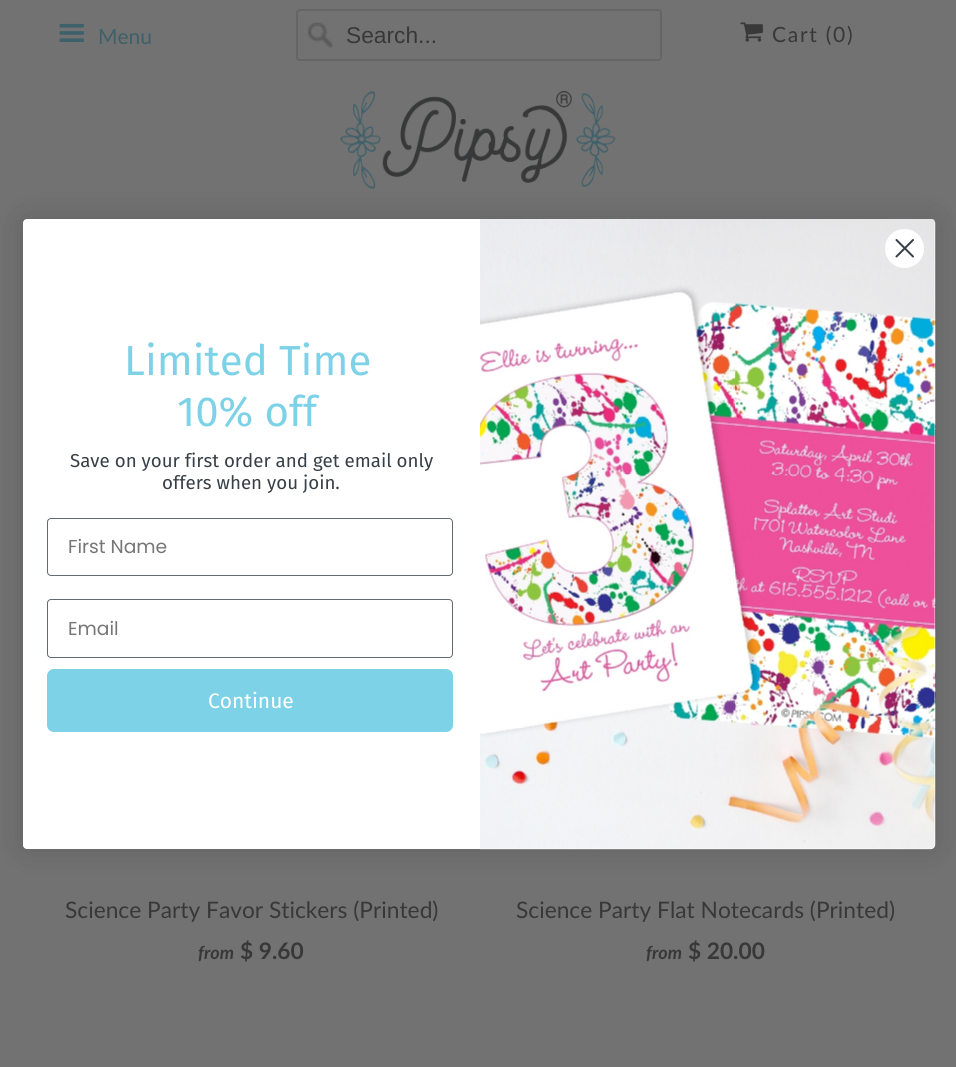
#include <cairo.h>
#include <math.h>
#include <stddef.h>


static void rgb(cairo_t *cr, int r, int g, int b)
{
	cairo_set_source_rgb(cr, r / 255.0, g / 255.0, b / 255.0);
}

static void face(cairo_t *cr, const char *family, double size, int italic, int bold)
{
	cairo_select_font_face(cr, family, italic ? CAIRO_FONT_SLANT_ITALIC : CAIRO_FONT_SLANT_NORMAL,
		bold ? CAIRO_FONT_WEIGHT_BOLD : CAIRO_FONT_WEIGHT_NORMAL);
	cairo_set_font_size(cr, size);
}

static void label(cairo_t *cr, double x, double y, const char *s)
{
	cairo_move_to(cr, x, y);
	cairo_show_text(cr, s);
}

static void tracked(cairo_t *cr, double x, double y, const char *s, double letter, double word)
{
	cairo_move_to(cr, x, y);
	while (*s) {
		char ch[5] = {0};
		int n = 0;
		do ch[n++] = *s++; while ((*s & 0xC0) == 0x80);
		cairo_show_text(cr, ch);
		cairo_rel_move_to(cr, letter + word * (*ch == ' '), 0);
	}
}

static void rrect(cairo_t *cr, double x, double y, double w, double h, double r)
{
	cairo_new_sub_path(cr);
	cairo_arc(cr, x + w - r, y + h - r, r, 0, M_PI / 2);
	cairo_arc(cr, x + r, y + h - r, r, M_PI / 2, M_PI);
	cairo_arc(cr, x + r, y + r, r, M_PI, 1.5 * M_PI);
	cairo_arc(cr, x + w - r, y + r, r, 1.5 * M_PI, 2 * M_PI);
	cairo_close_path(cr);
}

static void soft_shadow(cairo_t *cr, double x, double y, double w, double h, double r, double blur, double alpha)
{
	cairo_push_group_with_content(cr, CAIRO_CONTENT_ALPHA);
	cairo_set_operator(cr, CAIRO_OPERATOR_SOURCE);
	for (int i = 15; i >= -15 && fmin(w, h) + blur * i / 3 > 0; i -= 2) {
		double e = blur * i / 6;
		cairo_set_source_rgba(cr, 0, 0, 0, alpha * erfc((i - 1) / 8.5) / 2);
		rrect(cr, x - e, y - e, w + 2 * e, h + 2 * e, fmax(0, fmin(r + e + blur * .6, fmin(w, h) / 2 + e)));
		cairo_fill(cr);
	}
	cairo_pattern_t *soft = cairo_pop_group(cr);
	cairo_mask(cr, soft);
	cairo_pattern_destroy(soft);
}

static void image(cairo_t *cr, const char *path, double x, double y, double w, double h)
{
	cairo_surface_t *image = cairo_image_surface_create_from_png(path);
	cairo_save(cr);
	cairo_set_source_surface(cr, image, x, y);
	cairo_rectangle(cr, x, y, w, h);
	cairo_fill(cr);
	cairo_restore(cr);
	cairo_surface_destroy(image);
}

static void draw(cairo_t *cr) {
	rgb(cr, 114, 114, 114);
	cairo_paint(cr);
	image(cr, "image0.png", 59, 23, 25, 19);
	face(cr, "Lato", 21, 0, 0);
	rgb(cr, 62, 96, 106);
	label(cr, 98, 44, "Menu");
	image(cr, "image1.png", 308, 22, 25, 26);
	rrect(cr, 297, 10, 364, 50, 3);
	rgb(cr, 101, 101, 101);
	cairo_stroke(cr);
	face(cr, "Liberation Sans", 22.75, 0, 0);
	rgb(cr, 56, 56, 57);
	label(cr, 346, 43, "Search...");
	image(cr, "image2.png", 740, 22, 23, 20);
	face(cr, "Lato", 21, 0, 0);
	tracked(cr, 772, 42, "Cart (0)", 1.75, 0);
	image(cr, "image3.png", 340, 90, 276, 99);
	rgb(cr, 0, 0, 0);
	soft_shadow(cr, 23, 219, 912, 630, 4, 17.5, 0.15);
	rgb(cr, 255, 255, 255);
	rrect(cr, 23, 219, 912, 630, 4);
	cairo_fill(cr);
	image(cr, "image4.png", 480, 219, 456, 631);
	cairo_arc(cr, 904.5, 248.5, 19.5, 0, 2 * M_PI);
	cairo_fill(cr);
	cairo_new_path(cr);
	cairo_move_to(cr, 896.5, 240);
	cairo_line_to(cr, 913, 256.5);
	cairo_move_to(cr, 896.5, 256.5);
	cairo_line_to(cr, 913, 240);
	cairo_close_path(cr);
	rgb(cr, 55, 63, 71);
	cairo_set_line_cap(cr, CAIRO_LINE_CAP_ROUND);
	cairo_set_line_join(cr, CAIRO_LINE_JOIN_ROUND);
	cairo_stroke(cr);
	face(cr, "Fira Sans", 42, 0, 0);
	rgb(cr, 125, 210, 231);
	label(cr, 124, 375, "Limited Time");
	label(cr, 177, 426, "10% off");
	face(cr, "Fira Sans", 18.7, 0, 0);
	rgb(cr, 55, 63, 71);
	label(cr, 70, 467, "Save on your first order and get email only");
	label(cr, 162, 489, "offers when you join.");
	rrect(cr, 47.5, 518.5, 405, 57, 3.5);
	rgb(cr, 96, 106, 114);
	cairo_set_line_width(cr, 1);
	cairo_set_line_cap(cr, CAIRO_LINE_CAP_BUTT);
	cairo_set_line_join(cr, CAIRO_LINE_JOIN_MITER);
	cairo_stroke(cr);
	face(cr, "Poppins", 18.7, 0, 0);
	rgb(cr, 118, 118, 118);
	label(cr, 68, 553, "First Name");
	rrect(cr, 47.5, 599.5, 405, 58, 3.5);
	rgb(cr, 96, 106, 114);
	cairo_stroke(cr);
	rgb(cr, 118, 118, 118);
	label(cr, 68, 635, "Email");
	rgb(cr, 125, 210, 231);
	rrect(cr, 47, 669, 406, 63, 7);
	cairo_fill(cr);
	face(cr, "Fira Sans", 21, 0, 0);
	rgb(cr, 255, 255, 255);
	label(cr, 208, 708, "Continue");
	face(cr, "Lato", 22.75, 0, 0);
	rgb(cr, 56, 56, 57);
	label(cr, 65, 918, "Science Party Favor Stickers (Printed)");
	face(cr, "Lato", 18, 1, 1);
	label(cr, 198, 959, "from");
	face(cr, "Lato", 22.75, 0, 1);
	label(cr, 240, 959, "$ 9.60");
	face(cr, "Lato", 22.75, 0, 0);
	label(cr, 516, 918, "Science Party Flat Notecards (Printed)");
	face(cr, "Lato", 18, 1, 1);
	label(cr, 646, 959, "from");
	face(cr, "Lato", 22.75, 0, 1);
	label(cr, 688, 959, "$ 20.00");
}

int main(void) {
	cairo_surface_t *surface = cairo_image_surface_create(CAIRO_FORMAT_RGB24, 956, 1067);
	cairo_t *cr = cairo_create(surface);
	cairo_font_options_t *options = cairo_font_options_create();
	cairo_font_options_set_hint_metrics(options, CAIRO_HINT_METRICS_OFF);
	cairo_font_options_set_hint_style(options, CAIRO_HINT_STYLE_NONE);
	cairo_set_font_options(cr, options);
	cairo_set_miter_limit(cr, 4);
	draw(cr);
	cairo_surface_write_to_png(surface, "render.png");
	cairo_font_options_destroy(options);
	cairo_destroy(cr);
	cairo_surface_destroy(surface);
	return 0;
}
